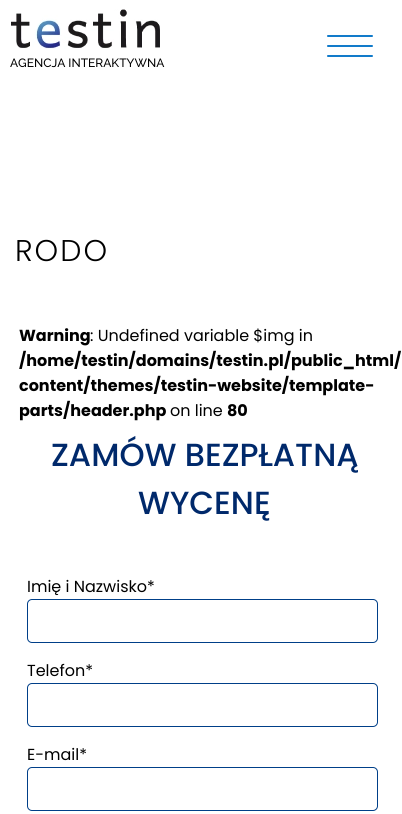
#include <cairo.h>
#include <math.h>
#include <stddef.h>


static void rgb(cairo_t *cr, int r, int g, int b)
{
	cairo_set_source_rgb(cr, r / 255.0, g / 255.0, b / 255.0);
}

static void face(cairo_t *cr, const char *family, double size, int italic, int bold)
{
	cairo_select_font_face(cr, family, italic ? CAIRO_FONT_SLANT_ITALIC : CAIRO_FONT_SLANT_NORMAL,
		bold ? CAIRO_FONT_WEIGHT_BOLD : CAIRO_FONT_WEIGHT_NORMAL);
	cairo_set_font_size(cr, size);
}

static void label(cairo_t *cr, double x, double y, const char *s)
{
	cairo_move_to(cr, x, y);
	cairo_show_text(cr, s);
}

static void tracked(cairo_t *cr, double x, double y, const char *s, double letter, double word)
{
	cairo_move_to(cr, x, y);
	while (*s) {
		char ch[5] = {0};
		int n = 0;
		do ch[n++] = *s++; while ((*s & 0xC0) == 0x80);
		cairo_show_text(cr, ch);
		cairo_rel_move_to(cr, letter + word * (*ch == ' '), 0);
	}
}

static void rrect(cairo_t *cr, double x, double y, double w, double h, double r)
{
	cairo_new_sub_path(cr);
	cairo_arc(cr, x + w - r, y + h - r, r, 0, M_PI / 2);
	cairo_arc(cr, x + r, y + h - r, r, M_PI / 2, M_PI);
	cairo_arc(cr, x + r, y + r, r, M_PI, 1.5 * M_PI);
	cairo_arc(cr, x + w - r, y + r, r, 1.5 * M_PI, 2 * M_PI);
	cairo_close_path(cr);
}

static void image(cairo_t *cr, const char *path, double x, double y, double w, double h)
{
	cairo_surface_t *image = cairo_image_surface_create_from_png(path);
	cairo_save(cr);
	cairo_set_source_surface(cr, image, x, y);
	cairo_rectangle(cr, x, y, w, h);
	cairo_fill(cr);
	cairo_restore(cr);
	cairo_surface_destroy(image);
}

static void draw(cairo_t *cr) {
	rgb(cr, 255, 255, 255);
	cairo_paint(cr);
	rgb(cr, 18, 123, 202);
	rrect(cr, 327, 35, 46, 2, 1);
	cairo_fill(cr);
	rrect(cr, 327, 45, 46, 2, 1);
	cairo_fill(cr);
	rrect(cr, 327, 55, 46, 2, 1);
	cairo_fill(cr);
	image(cr, "image0.png", 11, 9, 149, 40);
	face(cr, "Raleway Medium", 12, 0, 0);
	rgb(cr, 0, 0, 0);
	label(cr, 10, 67, "AGENCJA INTERAKTYWNA");
	face(cr, "Poppins Light", 30, 0, 0);
	tracked(cr, 15, 261, "RODO", 2, 0);
	face(cr, "Poppins", 16, 0, 1);
	label(cr, 19, 341, "Warning");
	face(cr, "Poppins", 16, 0, 0);
	label(cr, 90, 341, ": Undefined variable $img in");
	face(cr, "Poppins", 16, 0, 1);
	label(cr, 19, 366, "/home/testin/domains/testin.pl/public_html/");
	label(cr, 19, 391, "content/themes/testin-website/template-");
	label(cr, 19, 416, "parts/header.php");
	face(cr, "Poppins", 16, 0, 0);
	label(cr, 170, 416, "on line");
	face(cr, "Poppins", 16, 0, 1);
	label(cr, 227, 416, "80");
	face(cr, "Poppins Medium", 32, 0, 0);
	rgb(cr, 0, 41, 107);
	label(cr, 51, 466, "ZAMÓW BEZPŁATNĄ");
	label(cr, 138, 514, "WYCENĘ");
	face(cr, "Poppins", 16, 0, 0);
	rgb(cr, 0, 0, 0);
	label(cr, 27, 592, "Imię i Nazwisko*");
	rrect(cr, 27.5, 599.5, 350, 43, 4.5);
	rgb(cr, 0, 63, 136);
	cairo_set_line_width(cr, 1);
	cairo_stroke(cr);
	rgb(cr, 0, 0, 0);
	label(cr, 27, 676, "Telefon*");
	rrect(cr, 27.5, 683.5, 350, 43, 4.5);
	rgb(cr, 0, 63, 136);
	cairo_stroke(cr);
	rgb(cr, 0, 0, 0);
	label(cr, 27, 760, "E-mail*");
	rrect(cr, 27.5, 767.5, 350, 43, 4.5);
	rgb(cr, 0, 63, 136);
	cairo_stroke(cr);
}

int main(void) {
	cairo_surface_t *surface = cairo_image_surface_create(CAIRO_FORMAT_RGB24, 402, 814);
	cairo_t *cr = cairo_create(surface);
	cairo_font_options_t *options = cairo_font_options_create();
	cairo_font_options_set_hint_metrics(options, CAIRO_HINT_METRICS_OFF);
	cairo_font_options_set_hint_style(options, CAIRO_HINT_STYLE_NONE);
	cairo_set_font_options(cr, options);
	cairo_set_miter_limit(cr, 4);
	draw(cr);
	cairo_surface_write_to_png(surface, "render.png");
	cairo_font_options_destroy(options);
	cairo_destroy(cr);
	cairo_surface_destroy(surface);
	return 0;
}
